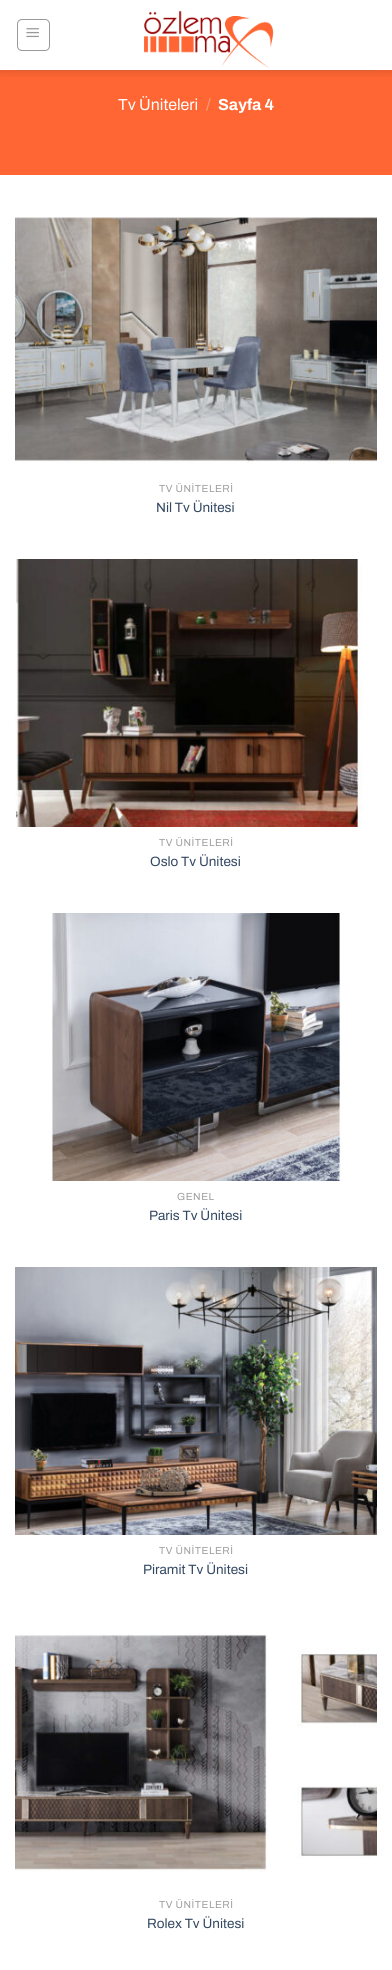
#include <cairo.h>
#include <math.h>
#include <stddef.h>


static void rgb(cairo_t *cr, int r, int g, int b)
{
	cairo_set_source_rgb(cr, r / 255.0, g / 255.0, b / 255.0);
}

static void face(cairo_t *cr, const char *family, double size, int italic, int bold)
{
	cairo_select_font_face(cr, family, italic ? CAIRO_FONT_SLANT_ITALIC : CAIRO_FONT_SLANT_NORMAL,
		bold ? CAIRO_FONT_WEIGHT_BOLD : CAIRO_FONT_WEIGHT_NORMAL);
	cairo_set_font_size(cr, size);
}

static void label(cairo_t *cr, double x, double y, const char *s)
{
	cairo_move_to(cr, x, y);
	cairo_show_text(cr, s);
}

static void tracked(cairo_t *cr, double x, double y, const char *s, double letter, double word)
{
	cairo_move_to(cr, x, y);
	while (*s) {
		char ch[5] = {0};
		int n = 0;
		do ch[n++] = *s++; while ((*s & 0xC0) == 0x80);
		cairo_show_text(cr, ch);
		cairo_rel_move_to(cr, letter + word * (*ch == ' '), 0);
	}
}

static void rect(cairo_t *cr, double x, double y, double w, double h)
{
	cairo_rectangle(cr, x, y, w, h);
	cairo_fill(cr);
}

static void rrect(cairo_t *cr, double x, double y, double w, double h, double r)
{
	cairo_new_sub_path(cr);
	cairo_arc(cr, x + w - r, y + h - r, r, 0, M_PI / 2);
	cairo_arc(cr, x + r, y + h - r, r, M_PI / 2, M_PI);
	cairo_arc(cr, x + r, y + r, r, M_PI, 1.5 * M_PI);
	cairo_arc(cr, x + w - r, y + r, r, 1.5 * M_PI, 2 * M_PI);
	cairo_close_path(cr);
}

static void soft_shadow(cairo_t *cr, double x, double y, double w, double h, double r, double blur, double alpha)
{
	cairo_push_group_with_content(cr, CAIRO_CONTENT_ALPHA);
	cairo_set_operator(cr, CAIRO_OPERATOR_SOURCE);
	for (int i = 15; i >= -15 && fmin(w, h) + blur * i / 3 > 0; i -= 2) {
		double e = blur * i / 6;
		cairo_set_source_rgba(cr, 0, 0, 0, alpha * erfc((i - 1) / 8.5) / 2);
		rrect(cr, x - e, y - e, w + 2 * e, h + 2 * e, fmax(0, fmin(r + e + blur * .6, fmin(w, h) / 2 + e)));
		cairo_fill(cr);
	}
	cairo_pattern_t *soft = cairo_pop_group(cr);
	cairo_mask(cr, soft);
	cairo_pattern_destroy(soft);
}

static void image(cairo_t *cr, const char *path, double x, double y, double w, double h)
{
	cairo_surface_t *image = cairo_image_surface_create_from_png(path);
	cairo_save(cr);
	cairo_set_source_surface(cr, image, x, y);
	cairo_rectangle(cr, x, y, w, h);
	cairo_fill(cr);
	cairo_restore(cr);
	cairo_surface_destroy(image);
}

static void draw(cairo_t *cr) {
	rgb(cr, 255, 255, 255);
	cairo_paint(cr);
	rgb(cr, 255, 102, 51);
	rect(cr, 0, 70, 392, 105);
	cairo_save(cr);
	cairo_rectangle(cr, 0, 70, 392, 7);
	cairo_clip(cr);
	rgb(cr, 0, 0, 0);
	soft_shadow(cr, 1, 1, 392, 70, 0, 5, 0.15);
	cairo_restore(cr);
	rrect(cr, 17.5, 19.5, 32, 31, 4.5);
	rgb(cr, 153, 153, 153);
	cairo_set_line_width(cr, 1);
	cairo_stroke(cr);
	image(cr, "image0.png", 26, 28, 13, 10);
	image(cr, "image1.png", 144, 10, 130, 58);
	rgb(cr, 223, 96, 54);
	rect(cr, 15, 70, 362, 1);
	face(cr, "Archivo", 16, 0, 0);
	rgb(cr, 255, 255, 255);
	label(cr, 118, 110, "Tv Üniteleri");
	rgb(cr, 255, 156, 122);
	label(cr, 206, 110, "/");
	face(cr, "Archivo", 16, 0, 1);
	rgb(cr, 255, 255, 255);
	label(cr, 218, 110, "Sayfa 4");
	image(cr, "image2.png", 15, 217, 362, 247);
	face(cr, "Archivo", 10.25, 0, 0);
	rgb(cr, 160, 160, 160);
	tracked(cr, 159, 492, "TV ÜNİTELERİ", 0.5, 0);
	face(cr, "Archivo", 13.5, 0, 0);
	rgb(cr, 51, 72, 98);
	label(cr, 156, 512, "Nil Tv Ünitesi");
	image(cr, "image3.png", 15, 559, 348, 268);
	face(cr, "Archivo", 10.25, 0, 0);
	rgb(cr, 160, 160, 160);
	tracked(cr, 159, 846, "TV ÜNİTELERİ", 0.5, 0);
	face(cr, "Archivo", 13.5, 0, 0);
	rgb(cr, 51, 72, 98);
	label(cr, 150, 866, "Oslo Tv Ünitesi");
	image(cr, "image4.png", 51, 913, 290, 268);
	face(cr, "Archivo", 10.25, 0, 0);
	rgb(cr, 160, 160, 160);
	tracked(cr, 177, 1200, "GENEL", 0.5, 0);
	face(cr, "Archivo", 13.5, 0, 0);
	rgb(cr, 51, 72, 98);
	label(cr, 149, 1220, "Paris Tv Ünitesi");
	image(cr, "image5.png", 15, 1267, 362, 268);
	face(cr, "Archivo", 10.25, 0, 0);
	rgb(cr, 160, 160, 160);
	tracked(cr, 159, 1554, "TV ÜNİTELERİ", 0.5, 0);
	face(cr, "Archivo", 13.5, 0, 0);
	rgb(cr, 51, 72, 98);
	label(cr, 143, 1574, "Piramit Tv Ünitesi");
	image(cr, "image6.png", 15, 1633, 362, 240);
	face(cr, "Archivo", 10.25, 0, 0);
	rgb(cr, 160, 160, 160);
	tracked(cr, 159, 1908, "TV ÜNİTELERİ", 0.5, 0);
	face(cr, "Archivo", 13.5, 0, 0);
	rgb(cr, 51, 72, 98);
	label(cr, 147, 1928, "Rolex Tv Ünitesi");
}

int main(void) {
	cairo_surface_t *surface = cairo_image_surface_create(CAIRO_FORMAT_RGB24, 392, 1970);
	cairo_t *cr = cairo_create(surface);
	cairo_font_options_t *options = cairo_font_options_create();
	cairo_font_options_set_hint_metrics(options, CAIRO_HINT_METRICS_OFF);
	cairo_font_options_set_hint_style(options, CAIRO_HINT_STYLE_NONE);
	cairo_set_font_options(cr, options);
	cairo_set_miter_limit(cr, 4);
	draw(cr);
	cairo_surface_write_to_png(surface, "render.png");
	cairo_font_options_destroy(options);
	cairo_destroy(cr);
	cairo_surface_destroy(surface);
	return 0;
}
